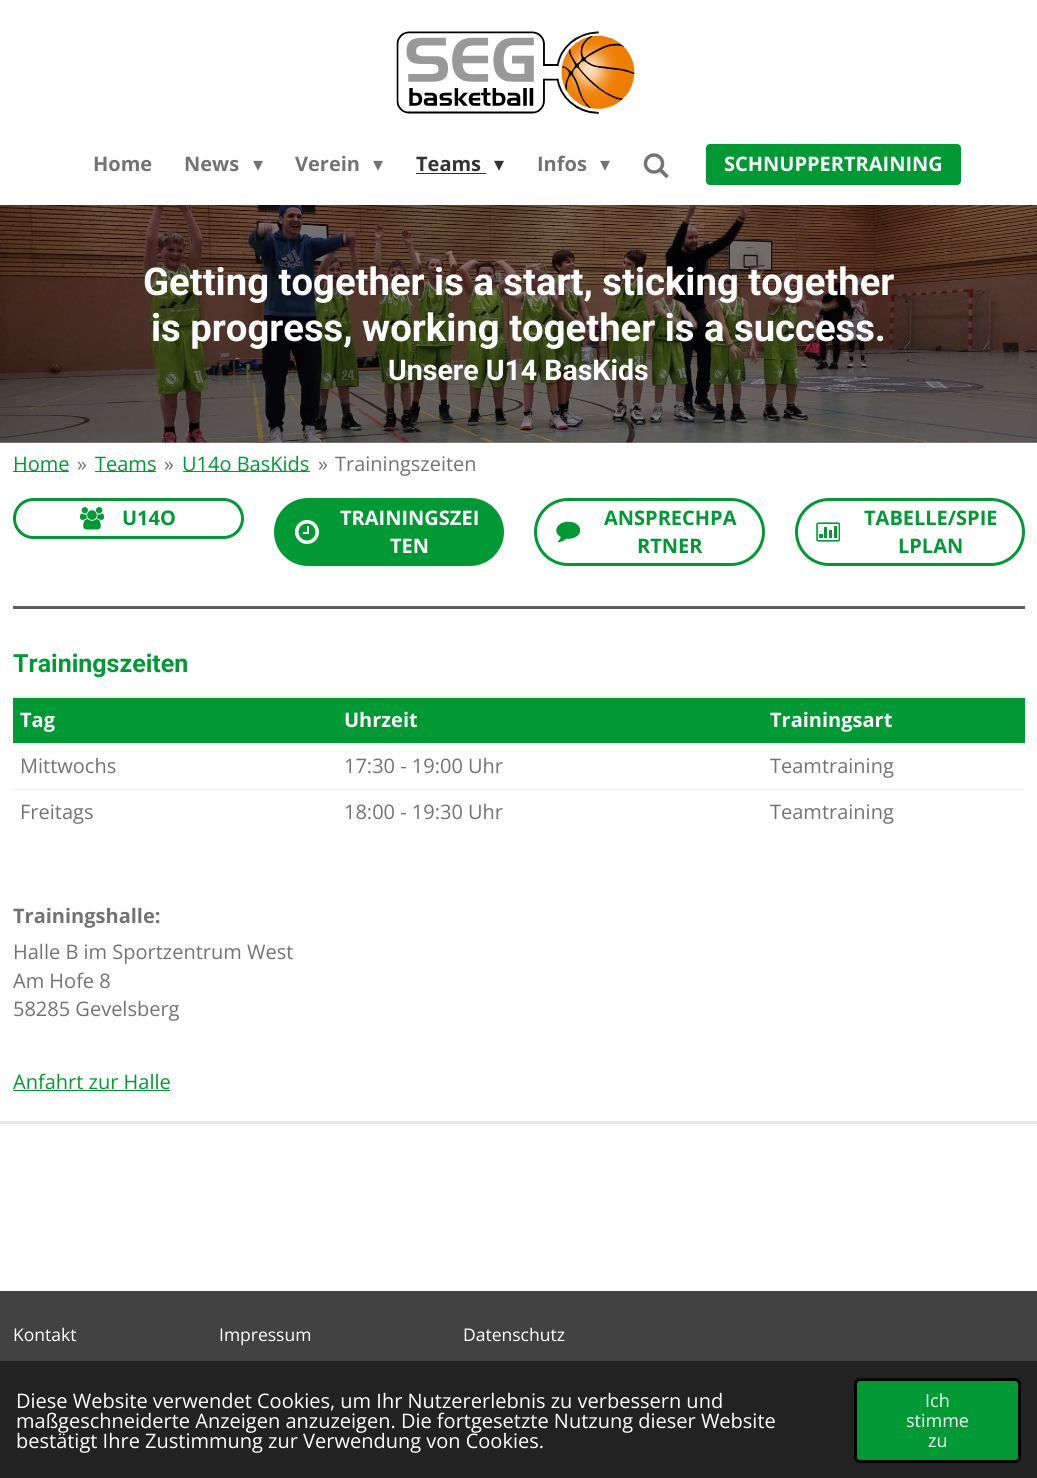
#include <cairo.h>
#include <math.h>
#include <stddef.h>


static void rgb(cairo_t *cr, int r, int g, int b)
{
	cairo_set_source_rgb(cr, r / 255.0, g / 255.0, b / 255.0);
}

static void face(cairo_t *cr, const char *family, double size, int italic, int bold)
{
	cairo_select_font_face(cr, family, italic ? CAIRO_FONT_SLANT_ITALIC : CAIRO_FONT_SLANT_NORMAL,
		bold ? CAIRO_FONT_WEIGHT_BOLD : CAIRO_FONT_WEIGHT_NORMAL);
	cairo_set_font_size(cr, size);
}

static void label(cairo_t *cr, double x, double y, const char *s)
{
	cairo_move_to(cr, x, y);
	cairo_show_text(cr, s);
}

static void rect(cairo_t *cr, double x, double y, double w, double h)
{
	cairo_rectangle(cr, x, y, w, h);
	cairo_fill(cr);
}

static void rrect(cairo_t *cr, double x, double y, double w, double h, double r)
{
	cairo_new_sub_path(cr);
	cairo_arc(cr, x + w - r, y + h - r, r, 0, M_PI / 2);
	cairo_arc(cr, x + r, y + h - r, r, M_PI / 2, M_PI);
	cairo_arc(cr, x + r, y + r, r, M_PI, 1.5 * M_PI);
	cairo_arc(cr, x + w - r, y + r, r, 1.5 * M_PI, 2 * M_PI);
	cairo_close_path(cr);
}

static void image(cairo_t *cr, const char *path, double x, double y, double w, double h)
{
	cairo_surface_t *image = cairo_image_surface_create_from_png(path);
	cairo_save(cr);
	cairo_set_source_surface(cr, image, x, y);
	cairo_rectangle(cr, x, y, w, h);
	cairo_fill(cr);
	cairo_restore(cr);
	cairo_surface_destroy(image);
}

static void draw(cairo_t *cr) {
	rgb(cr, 255, 255, 255);
	cairo_paint(cr);
	rgb(cr, 153, 153, 153);
	rect(cr, 0, 442, 1037, 1);
	image(cr, "image0.png", 396, 31, 239, 83);
	face(cr, "Open Sans", 20, 0, 1);
	rgb(cr, 115, 115, 115);
	label(cr, 93, 171, "Home");
	label(cr, 184, 171, "News");
	face(cr, "DejaVu Sans", 20, 0, 0);
	label(cr, 253, 171, "▾");
	face(cr, "Open Sans", 20, 0, 1);
	label(cr, 295, 171, "Verein");
	face(cr, "DejaVu Sans", 20, 0, 0);
	label(cr, 373, 171, "▾");
	face(cr, "Open Sans", 20, 0, 1);
	rgb(cr, 51, 51, 51);
	label(cr, 416, 171, "Teams");
	rect(cr, 416, 173, 70, 1);
	face(cr, "DejaVu Sans", 20, 0, 0);
	label(cr, 494, 171, "▾");
	face(cr, "Open Sans", 20, 0, 1);
	rgb(cr, 115, 115, 115);
	label(cr, 537, 171, "Infos");
	face(cr, "DejaVu Sans", 20, 0, 0);
	label(cr, 600, 171, "▾");
	image(cr, "image1.png", 643, 153, 26, 26);
	rgb(cr, 0, 153, 51);
	rrect(cr, 706, 144, 255, 41, 4);
	cairo_fill(cr);
	face(cr, "Open Sans", 20, 0, 1);
	rgb(cr, 255, 255, 255);
	label(cr, 724, 171, "SCHNUPPERTRAINING");
	image(cr, "image2.png", 0, 205, 1037, 238);
	face(cr, "Roboto", 38.25, 0, 1);
	label(cr, 143, 295, "Getting together is a start, sticking together");
	label(cr, 151, 341, "is progress, working together is a success.");
	face(cr, "Roboto", 28.5, 0, 1);
	label(cr, 388, 380, "Unsere U14 BasKids");
	rgb(cr, 234, 234, 234);
	rect(cr, 0, 1121, 1037, 3);
	rgb(cr, 0, 153, 51);
	rect(cr, 13, 471, 56, 1);
	face(cr, "Open Sans", 20, 0, 0);
	label(cr, 13, 471, "Home");
	rgb(cr, 115, 115, 115);
	label(cr, 77, 471, "»");
	rgb(cr, 0, 153, 51);
	rect(cr, 95, 471, 61, 1);
	label(cr, 95, 471, "Teams");
	rgb(cr, 115, 115, 115);
	label(cr, 164, 471, "»");
	rgb(cr, 0, 153, 51);
	rect(cr, 183, 471, 127, 1);
	label(cr, 182, 471, "U14o BasKids");
	rgb(cr, 115, 115, 115);
	label(cr, 318, 471, "»");
	label(cr, 335, 471, "Trainingszeiten");
	rrect(cr, 14.5, 499.5, 228, 38, 19);
	rgb(cr, 0, 153, 51);
	cairo_set_line_width(cr, 3);
	cairo_stroke(cr);
	image(cr, "image3.png", 80, 507, 24, 23);
	face(cr, "Open Sans", 20, 0, 1);
	label(cr, 122, 525, "U14O");
	rrect(cr, 274, 498, 230, 68, 34);
	cairo_fill(cr);
	image(cr, "image4.png", 295, 520, 24, 24);
	rgb(cr, 255, 255, 255);
	label(cr, 340, 525, "TRAININGSZEI");
	label(cr, 390, 553, "TEN");
	rrect(cr, 535.5, 499.5, 228, 65, 32.5);
	rgb(cr, 0, 153, 51);
	cairo_stroke(cr);
	image(cr, "image5.png", 556, 521, 24, 22);
	label(cr, 604, 525, "ANSPRECHPA");
	label(cr, 637, 553, "RTNER");
	rrect(cr, 796.5, 499.5, 227, 65, 32.5);
	cairo_stroke(cr);
	image(cr, "image6.png", 816, 522, 24, 20);
	label(cr, 864, 525, "TABELLE/SPIE");
	label(cr, 898, 553, "LPLAN");
	rgb(cr, 92, 92, 92);
	rect(cr, 13, 606, 1012, 3);
	face(cr, "Roboto", 25, 0, 1);
	rgb(cr, 0, 153, 51);
	label(cr, 13, 672, "Trainingszeiten");
	rgb(cr, 241, 241, 241);
	rect(cr, 13, 696, 1012, 1);
	rgb(cr, 0, 153, 51);
	rect(cr, 13, 698, 1012, 45);
	face(cr, "Open Sans", 20, 0, 1);
	rgb(cr, 255, 255, 255);
	label(cr, 20, 727, "Tag");
	label(cr, 344, 727, "Uhrzeit");
	label(cr, 770, 727, "Trainingsart");
	rgb(cr, 241, 241, 241);
	rect(cr, 13, 743, 1012, 1);
	face(cr, "Open Sans", 20, 0, 0);
	rgb(cr, 115, 115, 115);
	label(cr, 20, 773, "Mittwochs");
	label(cr, 344, 773, "17:30 - 19:00 Uhr");
	label(cr, 770, 773, "Teamtraining");
	rgb(cr, 241, 241, 241);
	rect(cr, 13, 789, 1012, 1);
	rgb(cr, 115, 115, 115);
	label(cr, 20, 819, "Freitags");
	label(cr, 344, 819, "18:00 - 19:30 Uhr");
	label(cr, 770, 819, "Teamtraining");
	face(cr, "Open Sans", 20, 0, 1);
	label(cr, 13, 923, "Trainingshalle:");
	face(cr, "Open Sans", 20, 0, 0);
	label(cr, 13, 959, "Halle B im Sportzentrum West");
	label(cr, 13, 988, "Am Hofe 8");
	label(cr, 13, 1016, "58285 Gevelsberg");
	rgb(cr, 0, 153, 51);
	label(cr, 13, 1089, "Anfahrt zur Halle");
	rect(cr, 13, 1090, 157, 1);
	rgb(cr, 66, 66, 66);
	rect(cr, 0, 1291, 1037, 70);
	face(cr, "Open Sans", 17.5, 0, 0);
	rgb(cr, 255, 255, 255);
	label(cr, 13, 1341, "Kontakt");
	label(cr, 219, 1341, "Impressum");
	label(cr, 463, 1341, "Datenschutz");
	rgb(cr, 34, 34, 34);
	rect(cr, 0, 1361, 1037, 117);
	face(cr, "Open Sans", 20, 0, 0);
	rgb(cr, 255, 255, 255);
	label(cr, 16, 1408, "Diese Website verwendet Cookies, um Ihr Nutzererlebnis zu verbessern und");
	label(cr, 16, 1428, "maßgeschneiderte Anzeigen anzuzeigen. Die fortgesetzte Nutzung dieser Website");
	label(cr, 16, 1448, "bestätigt Ihre Zustimmung zur Verwendung von Cookies.");
	rgb(cr, 0, 153, 51);
	rrect(cr, 855.5, 1379.5, 164, 82, 4.5);
	cairo_fill_preserve(cr);
	rgb(cr, 0, 0, 0);
	cairo_stroke(cr);
	face(cr, "Open Sans", 18, 0, 0);
	rgb(cr, 255, 255, 255);
	label(cr, 925, 1407, "Ich");
	label(cr, 906, 1427, "stimme");
	label(cr, 928, 1447, "zu");
}

int main(void) {
	cairo_surface_t *surface = cairo_image_surface_create(CAIRO_FORMAT_RGB24, 1037, 1478);
	cairo_t *cr = cairo_create(surface);
	cairo_font_options_t *options = cairo_font_options_create();
	cairo_font_options_set_hint_metrics(options, CAIRO_HINT_METRICS_OFF);
	cairo_font_options_set_hint_style(options, CAIRO_HINT_STYLE_NONE);
	cairo_set_font_options(cr, options);
	cairo_set_miter_limit(cr, 4);
	draw(cr);
	cairo_surface_write_to_png(surface, "render.png");
	cairo_font_options_destroy(options);
	cairo_destroy(cr);
	cairo_surface_destroy(surface);
	return 0;
}
